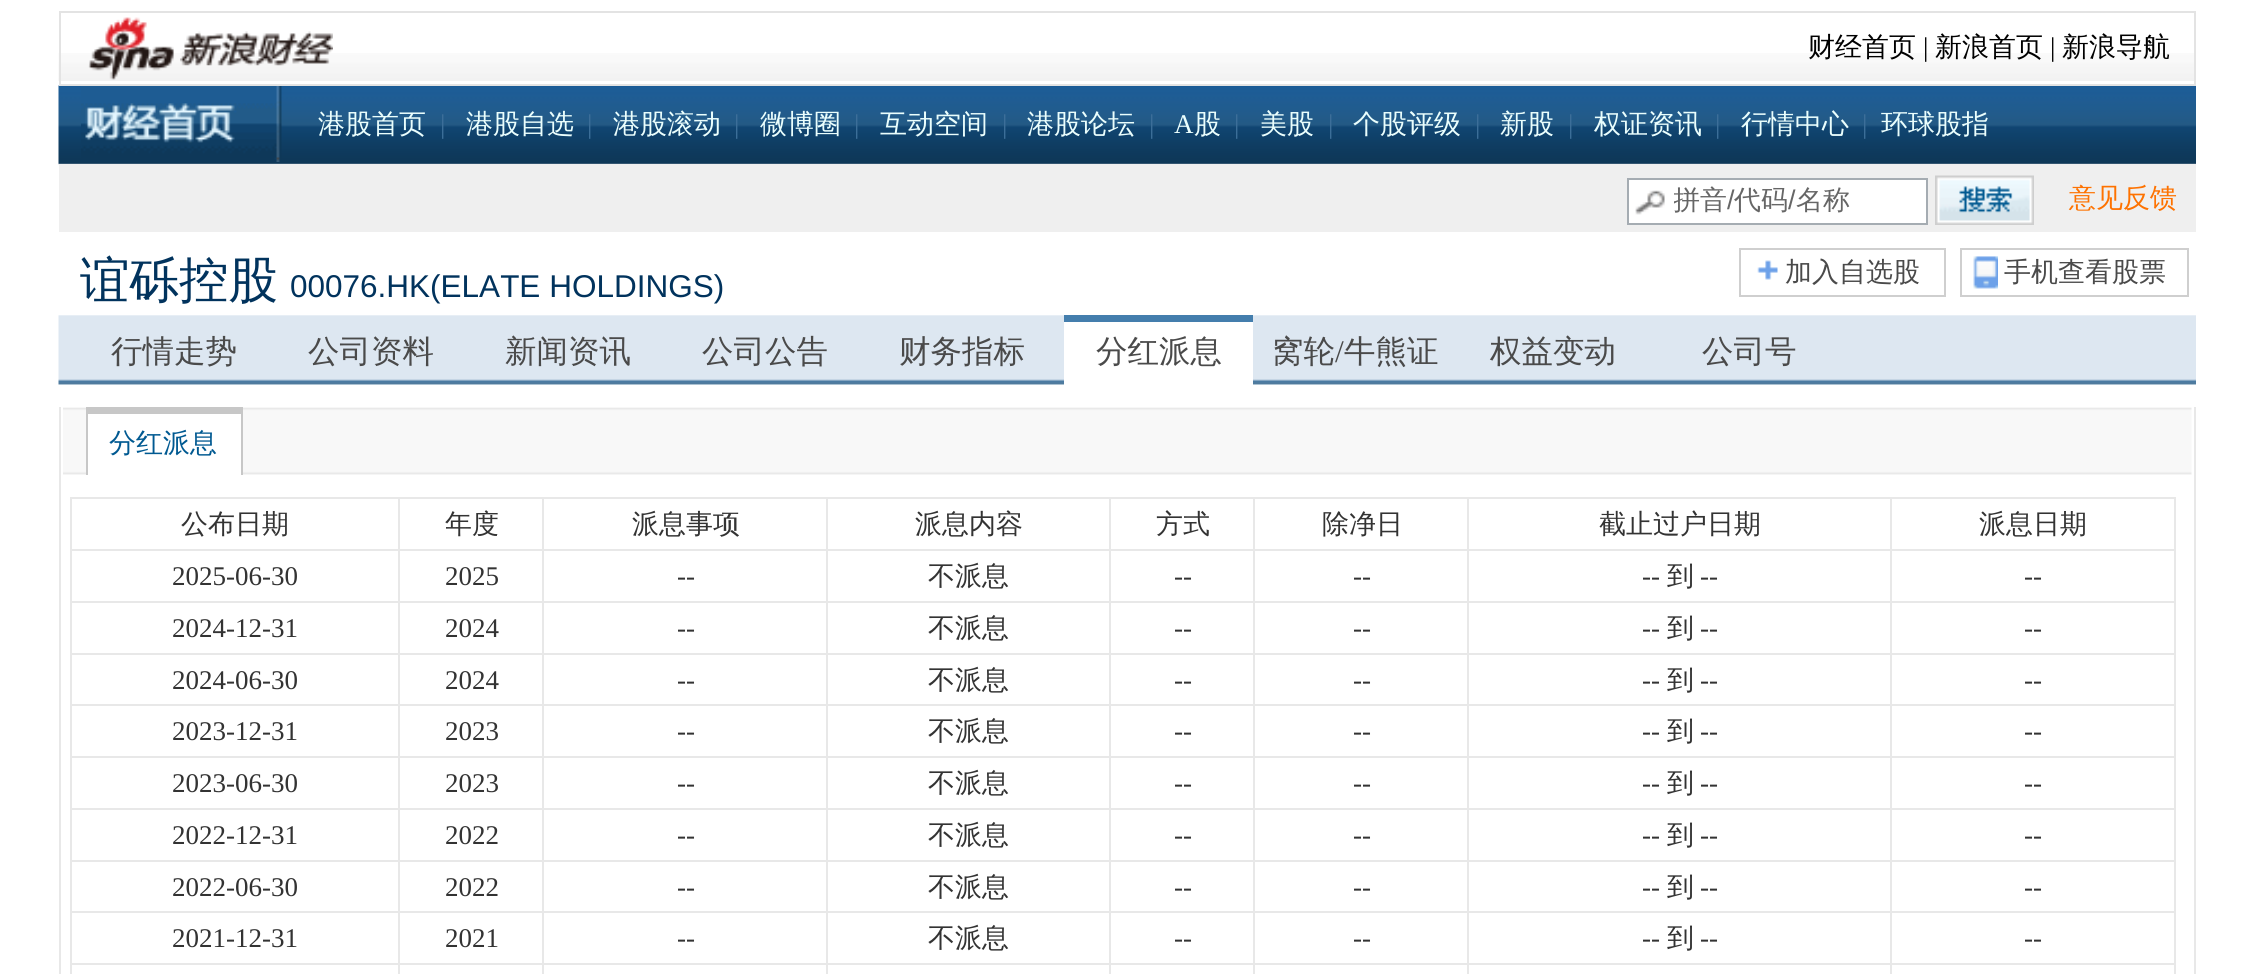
#include <cairo.h>
#include <math.h>
#include <stddef.h>


static void rgb(cairo_t *cr, int r, int g, int b)
{
	cairo_set_source_rgb(cr, r / 255.0, g / 255.0, b / 255.0);
}

static void face(cairo_t *cr, const char *family, double size, int italic, int bold)
{
	cairo_select_font_face(cr, family, italic ? CAIRO_FONT_SLANT_ITALIC : CAIRO_FONT_SLANT_NORMAL,
		bold ? CAIRO_FONT_WEIGHT_BOLD : CAIRO_FONT_WEIGHT_NORMAL);
	cairo_set_font_size(cr, size);
}

static void label(cairo_t *cr, double x, double y, const char *s)
{
	cairo_move_to(cr, x, y);
	cairo_show_text(cr, s);
}

static void rect(cairo_t *cr, double x, double y, double w, double h)
{
	cairo_rectangle(cr, x, y, w, h);
	cairo_fill(cr);
}

static void image(cairo_t *cr, const char *path, double x, double y, double w, double h)
{
	cairo_surface_t *image = cairo_image_surface_create_from_png(path);
	cairo_save(cr);
	cairo_set_source_surface(cr, image, x, y);
	cairo_rectangle(cr, x, y, w, h);
	cairo_fill(cr);
	cairo_restore(cr);
	cairo_surface_destroy(image);
}

static void draw(cairo_t *cr) {
	rgb(cr, 255, 255, 255);
	cairo_paint(cr);
	image(cr, "image0.png", 58, 53, 2136, 28);
	image(cr, "image3.png", 58, 85, 2138, 80);
	cairo_rectangle(cr, 60, 12, 2135, 73);
	rgb(cr, 227, 227, 227);
	cairo_stroke(cr);
	image(cr, "image1.png", 88, 17, 86, 63);
	image(cr, "image2.png", 180, 31, 153, 35);
	face(cr, "WenQuanYi Zen Hei Medium", 27, 0, 0);
	rgb(cr, 0, 0, 0);
	label(cr, 1808, 56, "财经首页");
	face(cr, "Liberation Serif", 27, 0, 0);
	label(cr, 1923, 56, "|");
	face(cr, "WenQuanYi Zen Hei Medium", 27, 0, 0);
	label(cr, 1935, 56, "新浪首页");
	face(cr, "Liberation Serif", 27, 0, 0);
	label(cr, 2050, 56, "|");
	face(cr, "WenQuanYi Zen Hei Medium", 27, 0, 0);
	label(cr, 2062, 56, "新浪导航");
	image(cr, "image4.png", 81, 86, 201, 76);
	rgb(cr, 234, 254, 253);
	label(cr, 318, 133, "港股首页");
	face(cr, "Liberation Serif", 27, 0, 0);
	rgb(cr, 61, 111, 153);
	label(cr, 440, 133, "|");
	face(cr, "WenQuanYi Zen Hei Medium", 27, 0, 0);
	rgb(cr, 234, 254, 253);
	label(cr, 466, 133, "港股自选");
	face(cr, "Liberation Serif", 27, 0, 0);
	rgb(cr, 61, 111, 153);
	label(cr, 587, 133, "|");
	face(cr, "WenQuanYi Zen Hei Medium", 27, 0, 0);
	rgb(cr, 234, 254, 253);
	label(cr, 613, 133, "港股滚动");
	face(cr, "Liberation Serif", 27, 0, 0);
	rgb(cr, 61, 111, 153);
	label(cr, 734, 133, "|");
	face(cr, "WenQuanYi Zen Hei Medium", 27, 0, 0);
	rgb(cr, 234, 254, 253);
	label(cr, 760, 133, "微博圈");
	face(cr, "Liberation Serif", 27, 0, 0);
	rgb(cr, 61, 111, 153);
	label(cr, 854, 133, "|");
	face(cr, "WenQuanYi Zen Hei Medium", 27, 0, 0);
	rgb(cr, 234, 254, 253);
	label(cr, 880, 133, "互动空间");
	face(cr, "Liberation Serif", 27, 0, 0);
	rgb(cr, 61, 111, 153);
	label(cr, 1002, 133, "|");
	face(cr, "WenQuanYi Zen Hei Medium", 27, 0, 0);
	rgb(cr, 234, 254, 253);
	label(cr, 1027, 133, "港股论坛");
	face(cr, "Liberation Serif", 27, 0, 0);
	rgb(cr, 61, 111, 153);
	label(cr, 1149, 133, "|");
	rgb(cr, 234, 254, 253);
	label(cr, 1174, 133, "A");
	face(cr, "WenQuanYi Zen Hei Medium", 27, 0, 0);
	label(cr, 1194, 133, "股");
	face(cr, "Liberation Serif", 27, 0, 0);
	rgb(cr, 61, 111, 153);
	label(cr, 1234, 133, "|");
	face(cr, "WenQuanYi Zen Hei Medium", 27, 0, 0);
	rgb(cr, 234, 254, 253);
	label(cr, 1260, 133, "美股");
	face(cr, "Liberation Serif", 27, 0, 0);
	rgb(cr, 61, 111, 153);
	label(cr, 1328, 133, "|");
	face(cr, "WenQuanYi Zen Hei Medium", 27, 0, 0);
	rgb(cr, 234, 254, 253);
	label(cr, 1353, 133, "个股评级");
	face(cr, "Liberation Serif", 27, 0, 0);
	rgb(cr, 61, 111, 153);
	label(cr, 1475, 133, "|");
	face(cr, "WenQuanYi Zen Hei Medium", 27, 0, 0);
	rgb(cr, 234, 254, 253);
	label(cr, 1500, 133, "新股");
	face(cr, "Liberation Serif", 27, 0, 0);
	rgb(cr, 61, 111, 153);
	label(cr, 1568, 133, "|");
	face(cr, "WenQuanYi Zen Hei Medium", 27, 0, 0);
	rgb(cr, 234, 254, 253);
	label(cr, 1594, 133, "权证资讯");
	face(cr, "Liberation Serif", 27, 0, 0);
	rgb(cr, 61, 111, 153);
	label(cr, 1715, 133, "|");
	face(cr, "WenQuanYi Zen Hei Medium", 27, 0, 0);
	rgb(cr, 234, 254, 253);
	label(cr, 1741, 133, "行情中心");
	face(cr, "Liberation Serif", 27, 0, 0);
	rgb(cr, 61, 111, 153);
	label(cr, 1862, 133, "|");
	face(cr, "WenQuanYi Zen Hei Medium", 27, 0, 0);
	rgb(cr, 234, 254, 253);
	label(cr, 1881, 133, "环球股指");
	rgb(cr, 239, 239, 239);
	rect(cr, 59, 164, 2137, 68);
	rgb(cr, 255, 255, 255);
	rect(cr, 1629, 180, 297, 43);
	image(cr, "image5.png", 1635, 190, 30, 25);
	cairo_rectangle(cr, 1628, 179, 299, 45);
	rgb(cr, 165, 172, 178);
	cairo_stroke(cr);
	cairo_save(cr);
	cairo_rectangle(cr, 1674, 182, 248, 39);
	cairo_clip(cr);
	rgb(cr, 102, 102, 102);
	label(cr, 1673, 209, "拼音");
	cairo_restore(cr);
	face(cr, "Liberation Sans", 27, 0, 0);
	rgb(cr, 102, 102, 102);
	label(cr, 1727, 209, "/");
	face(cr, "WenQuanYi Zen Hei Medium", 27, 0, 0);
	label(cr, 1734, 209, "代码");
	face(cr, "Liberation Sans", 27, 0, 0);
	label(cr, 1788, 209, "/");
	face(cr, "WenQuanYi Zen Hei Medium", 27, 0, 0);
	label(cr, 1796, 209, "名称");
	image(cr, "image6.png", 1935, 175, 99, 50);
	rgb(cr, 254, 114, 0);
	label(cr, 2069, 207, "意见反馈");
	face(cr, "WenQuanYi Zen Hei Medium", 49.5, 0, 0);
	rgb(cr, 1, 51, 93);
	label(cr, 80, 297, "谊砾控股");
	face(cr, "Liberation Sans", 31.5, 0, 0);
	label(cr, 290, 297, "00076.HK(ELATE HOLDINGS)");
	image(cr, "image7.png", 1757, 260, 21, 20);
	cairo_rectangle(cr, 1740, 249, 205, 47);
	rgb(cr, 207, 207, 207);
	cairo_stroke(cr);
	face(cr, "WenQuanYi Zen Hei Medium", 27, 0, 0);
	rgb(cr, 74, 74, 74);
	label(cr, 1785, 281, "加入自选股");
	image(cr, "image8.png", 1973, 256, 25, 33);
	cairo_rectangle(cr, 1961, 249, 227, 47);
	rgb(cr, 207, 207, 207);
	cairo_stroke(cr);
	rgb(cr, 74, 74, 74);
	label(cr, 2004, 281, "手机查看股票");
	image(cr, "image9.png", 58, 315, 2138, 70);
	face(cr, "WenQuanYi Zen Hei Medium", 31.5, 0, 0);
	label(cr, 111, 362, "行情走势");
	label(cr, 308, 362, "公司资料");
	label(cr, 505, 362, "新闻资讯");
	label(cr, 702, 362, "公司公告");
	label(cr, 899, 362, "财务指标");
	rgb(cr, 255, 255, 255);
	rect(cr, 1064, 322, 189, 63);
	rgb(cr, 68, 126, 173);
	rect(cr, 1064, 315, 189, 7);
	rgb(cr, 74, 74, 74);
	label(cr, 1096, 362, "分红派息");
	label(cr, 1272, 362, "窝轮");
	face(cr, "Liberation Serif", 31.5, 0, 0);
	label(cr, 1335, 362, "/");
	face(cr, "WenQuanYi Zen Hei Medium", 31.5, 0, 0);
	label(cr, 1344, 362, "牛熊证");
	label(cr, 1490, 362, "权益变动");
	label(cr, 1702, 362, "公司号");
	rgb(cr, 232, 232, 232);
	rect(cr, 2194, 407, 2, 567);
	rect(cr, 59, 407, 2, 567);
	image(cr, "image10.png", 63, 407, 2129, 68);
	rgb(cr, 255, 255, 255);
	rect(cr, 88, 414, 153, 61);
	rgb(cr, 199, 199, 199);
	rect(cr, 86, 407, 157, 7);
	rect(cr, 241, 407, 2, 68);
	rect(cr, 86, 407, 2, 68);
	face(cr, "WenQuanYi Zen Hei Medium", 27, 0, 0);
	rgb(cr, 0, 89, 145);
	label(cr, 109, 452, "分红派息");
	rgb(cr, 232, 232, 232);
	rect(cr, 1890, 497, 286, 2);
	rect(cr, 1890, 549, 286, 2);
	rect(cr, 1890, 601, 286, 2);
	rect(cr, 1890, 653, 286, 2);
	rect(cr, 1890, 704, 286, 2);
	rect(cr, 1890, 756, 286, 2);
	rect(cr, 1890, 808, 286, 2);
	rect(cr, 1890, 860, 286, 2);
	rect(cr, 1890, 911, 286, 2);
	rect(cr, 1890, 963, 286, 2);
	rect(cr, 1890, 963, 2, 11);
	rect(cr, 1467, 963, 425, 2);
	rect(cr, 1890, 911, 2, 54);
	rect(cr, 1467, 911, 425, 2);
	rect(cr, 1890, 860, 2, 54);
	rect(cr, 1467, 860, 425, 2);
	rect(cr, 1890, 808, 2, 54);
	rect(cr, 1467, 808, 425, 2);
	rect(cr, 1890, 756, 2, 54);
	rect(cr, 1467, 756, 425, 2);
	rect(cr, 1890, 704, 2, 54);
	rect(cr, 1467, 704, 425, 2);
	rect(cr, 1890, 653, 2, 54);
	rect(cr, 1467, 653, 425, 2);
	rect(cr, 1890, 601, 2, 54);
	rect(cr, 1467, 601, 425, 2);
	rect(cr, 1890, 549, 2, 54);
	rect(cr, 1467, 549, 425, 2);
	rect(cr, 1890, 497, 2, 54);
	rect(cr, 1467, 497, 425, 2);
	rect(cr, 1467, 963, 2, 11);
	rect(cr, 1253, 963, 216, 2);
	rect(cr, 1467, 911, 2, 54);
	rect(cr, 1253, 911, 216, 2);
	rect(cr, 1467, 860, 2, 54);
	rect(cr, 1253, 860, 216, 2);
	rect(cr, 1467, 808, 2, 54);
	rect(cr, 1253, 808, 216, 2);
	rect(cr, 1467, 756, 2, 54);
	rect(cr, 1253, 756, 216, 2);
	rect(cr, 1467, 704, 2, 54);
	rect(cr, 1253, 704, 216, 2);
	rect(cr, 1467, 653, 2, 54);
	rect(cr, 1253, 653, 216, 2);
	rect(cr, 1467, 601, 2, 54);
	rect(cr, 1253, 601, 216, 2);
	rect(cr, 1467, 549, 2, 54);
	rect(cr, 1253, 549, 216, 2);
	rect(cr, 1467, 497, 2, 54);
	rect(cr, 1253, 497, 216, 2);
	rect(cr, 1253, 963, 2, 11);
	rect(cr, 1109, 963, 147, 2);
	rect(cr, 1253, 911, 2, 54);
	rect(cr, 1109, 911, 147, 2);
	rect(cr, 1253, 860, 2, 54);
	rect(cr, 1109, 860, 147, 2);
	rect(cr, 1253, 808, 2, 54);
	rect(cr, 1109, 808, 147, 2);
	rect(cr, 1253, 756, 2, 54);
	rect(cr, 1109, 756, 147, 2);
	rect(cr, 1253, 704, 2, 54);
	rect(cr, 1109, 704, 147, 2);
	rect(cr, 1253, 653, 2, 54);
	rect(cr, 1109, 653, 147, 2);
	rect(cr, 1253, 601, 2, 54);
	rect(cr, 1109, 601, 147, 2);
	rect(cr, 1253, 549, 2, 54);
	rect(cr, 1109, 549, 147, 2);
	rect(cr, 1253, 497, 2, 54);
	rect(cr, 1109, 497, 147, 2);
	rect(cr, 1109, 963, 2, 11);
	rect(cr, 826, 963, 286, 2);
	rect(cr, 1109, 911, 2, 54);
	rect(cr, 826, 911, 286, 2);
	rect(cr, 1109, 860, 2, 54);
	rect(cr, 826, 860, 286, 2);
	rect(cr, 1109, 808, 2, 54);
	rect(cr, 826, 808, 286, 2);
	rect(cr, 1109, 756, 2, 54);
	rect(cr, 826, 756, 286, 2);
	rect(cr, 1109, 704, 2, 54);
	rect(cr, 826, 704, 286, 2);
	rect(cr, 1109, 653, 2, 54);
	rect(cr, 826, 653, 286, 2);
	rect(cr, 1109, 601, 2, 54);
	rect(cr, 826, 601, 286, 2);
	rect(cr, 1109, 549, 2, 54);
	rect(cr, 826, 549, 286, 2);
	rect(cr, 1109, 497, 2, 54);
	rect(cr, 826, 497, 286, 2);
	rect(cr, 826, 963, 2, 11);
	rect(cr, 542, 963, 286, 2);
	rect(cr, 826, 911, 2, 54);
	rect(cr, 542, 911, 286, 2);
	rect(cr, 826, 860, 2, 54);
	rect(cr, 542, 860, 286, 2);
	rect(cr, 826, 808, 2, 54);
	rect(cr, 542, 808, 286, 2);
	rect(cr, 826, 756, 2, 54);
	rect(cr, 542, 756, 286, 2);
	rect(cr, 826, 704, 2, 54);
	rect(cr, 542, 704, 286, 2);
	rect(cr, 826, 653, 2, 54);
	rect(cr, 542, 653, 286, 2);
	rect(cr, 826, 601, 2, 54);
	rect(cr, 542, 601, 286, 2);
	rect(cr, 826, 549, 2, 54);
	rect(cr, 542, 549, 286, 2);
	rect(cr, 826, 497, 2, 54);
	rect(cr, 542, 497, 286, 2);
	rect(cr, 542, 963, 2, 11);
	rect(cr, 398, 963, 147, 2);
	rect(cr, 542, 911, 2, 54);
	rect(cr, 398, 911, 147, 2);
	rect(cr, 542, 860, 2, 54);
	rect(cr, 398, 860, 147, 2);
	rect(cr, 542, 808, 2, 54);
	rect(cr, 398, 808, 147, 2);
	rect(cr, 542, 756, 2, 54);
	rect(cr, 398, 756, 147, 2);
	rect(cr, 542, 704, 2, 54);
	rect(cr, 398, 704, 147, 2);
	rect(cr, 542, 653, 2, 54);
	rect(cr, 398, 653, 147, 2);
	rect(cr, 542, 601, 2, 54);
	rect(cr, 398, 601, 147, 2);
	rect(cr, 542, 549, 2, 54);
	rect(cr, 398, 549, 147, 2);
	rect(cr, 542, 497, 2, 54);
	rect(cr, 398, 497, 147, 2);
	rect(cr, 398, 963, 2, 11);
	rect(cr, 70, 963, 331, 2);
	rect(cr, 398, 911, 2, 54);
	rect(cr, 70, 911, 331, 2);
	rect(cr, 398, 860, 2, 54);
	rect(cr, 70, 860, 331, 2);
	rect(cr, 398, 808, 2, 54);
	rect(cr, 70, 808, 331, 2);
	rect(cr, 398, 756, 2, 54);
	rect(cr, 70, 756, 331, 2);
	rect(cr, 398, 704, 2, 54);
	rect(cr, 70, 704, 331, 2);
	rect(cr, 398, 653, 2, 54);
	rect(cr, 70, 653, 331, 2);
	rect(cr, 398, 601, 2, 54);
	rect(cr, 70, 601, 331, 2);
	rect(cr, 398, 549, 2, 54);
	rect(cr, 70, 549, 331, 2);
	rect(cr, 398, 497, 2, 54);
	rect(cr, 70, 497, 331, 2);
	rect(cr, 70, 963, 2, 11);
	rect(cr, 70, 911, 2, 54);
	rect(cr, 70, 860, 2, 54);
	rect(cr, 70, 808, 2, 54);
	rect(cr, 70, 756, 2, 54);
	rect(cr, 70, 704, 2, 54);
	rect(cr, 70, 653, 2, 54);
	rect(cr, 70, 601, 2, 54);
	rect(cr, 70, 549, 2, 54);
	rect(cr, 70, 497, 2, 54);
	rgb(cr, 51, 51, 51);
	label(cr, 181, 533, "公布日期");
	label(cr, 445, 533, "年度");
	label(cr, 632, 533, "派息事项");
	label(cr, 915, 533, "派息内容");
	label(cr, 1156, 533, "方式");
	label(cr, 1322, 533, "除净日");
	label(cr, 1599, 533, "截止过户日期");
	rgb(cr, 232, 232, 232);
	rect(cr, 2174, 963, 2, 11);
	rect(cr, 2174, 911, 2, 54);
	rect(cr, 2174, 860, 2, 54);
	rect(cr, 2174, 808, 2, 54);
	rect(cr, 2174, 756, 2, 54);
	rect(cr, 2174, 704, 2, 54);
	rect(cr, 2174, 653, 2, 54);
	rect(cr, 2174, 601, 2, 54);
	rect(cr, 2174, 549, 2, 54);
	rect(cr, 2174, 497, 2, 54);
	rgb(cr, 51, 51, 51);
	label(cr, 1979, 533, "派息日期");
	face(cr, "Liberation Serif", 27, 0, 0);
	label(cr, 172, 585, "2025-06-30");
	label(cr, 445, 585, "2025");
	label(cr, 677, 585, "--");
	face(cr, "WenQuanYi Zen Hei Medium", 27, 0, 0);
	label(cr, 928, 585, "不派息");
	face(cr, "Liberation Serif", 27, 0, 0);
	label(cr, 1174, 585, "--");
	label(cr, 1353, 585, "--");
	label(cr, 1642, 585, "--");
	face(cr, "WenQuanYi Zen Hei Medium", 27, 0, 0);
	label(cr, 1667, 585, "到");
	face(cr, "Liberation Serif", 27, 0, 0);
	label(cr, 1700, 585, "--");
	label(cr, 2024, 585, "--");
	label(cr, 172, 637, "2024-12-31");
	label(cr, 445, 637, "2024");
	label(cr, 677, 637, "--");
	face(cr, "WenQuanYi Zen Hei Medium", 27, 0, 0);
	label(cr, 928, 637, "不派息");
	face(cr, "Liberation Serif", 27, 0, 0);
	label(cr, 1174, 637, "--");
	label(cr, 1353, 637, "--");
	label(cr, 1642, 637, "--");
	face(cr, "WenQuanYi Zen Hei Medium", 27, 0, 0);
	label(cr, 1667, 637, "到");
	face(cr, "Liberation Serif", 27, 0, 0);
	label(cr, 1700, 637, "--");
	label(cr, 2024, 637, "--");
	label(cr, 172, 689, "2024-06-30");
	label(cr, 445, 689, "2024");
	label(cr, 677, 689, "--");
	face(cr, "WenQuanYi Zen Hei Medium", 27, 0, 0);
	label(cr, 928, 689, "不派息");
	face(cr, "Liberation Serif", 27, 0, 0);
	label(cr, 1174, 689, "--");
	label(cr, 1353, 689, "--");
	label(cr, 1642, 689, "--");
	face(cr, "WenQuanYi Zen Hei Medium", 27, 0, 0);
	label(cr, 1667, 689, "到");
	face(cr, "Liberation Serif", 27, 0, 0);
	label(cr, 1700, 689, "--");
	label(cr, 2024, 689, "--");
	label(cr, 172, 740, "2023-12-31");
	label(cr, 445, 740, "2023");
	label(cr, 677, 740, "--");
	face(cr, "WenQuanYi Zen Hei Medium", 27, 0, 0);
	label(cr, 928, 740, "不派息");
	face(cr, "Liberation Serif", 27, 0, 0);
	label(cr, 1174, 740, "--");
	label(cr, 1353, 740, "--");
	label(cr, 1642, 740, "--");
	face(cr, "WenQuanYi Zen Hei Medium", 27, 0, 0);
	label(cr, 1667, 740, "到");
	face(cr, "Liberation Serif", 27, 0, 0);
	label(cr, 1700, 740, "--");
	label(cr, 2024, 740, "--");
	label(cr, 172, 792, "2023-06-30");
	label(cr, 445, 792, "2023");
	label(cr, 677, 792, "--");
	face(cr, "WenQuanYi Zen Hei Medium", 27, 0, 0);
	label(cr, 928, 792, "不派息");
	face(cr, "Liberation Serif", 27, 0, 0);
	label(cr, 1174, 792, "--");
	label(cr, 1353, 792, "--");
	label(cr, 1642, 792, "--");
	face(cr, "WenQuanYi Zen Hei Medium", 27, 0, 0);
	label(cr, 1667, 792, "到");
	face(cr, "Liberation Serif", 27, 0, 0);
	label(cr, 1700, 792, "--");
	label(cr, 2024, 792, "--");
	label(cr, 172, 844, "2022-12-31");
	label(cr, 445, 844, "2022");
	label(cr, 677, 844, "--");
	face(cr, "WenQuanYi Zen Hei Medium", 27, 0, 0);
	label(cr, 928, 844, "不派息");
	face(cr, "Liberation Serif", 27, 0, 0);
	label(cr, 1174, 844, "--");
	label(cr, 1353, 844, "--");
	label(cr, 1642, 844, "--");
	face(cr, "WenQuanYi Zen Hei Medium", 27, 0, 0);
	label(cr, 1667, 844, "到");
	face(cr, "Liberation Serif", 27, 0, 0);
	label(cr, 1700, 844, "--");
	label(cr, 2024, 844, "--");
	label(cr, 172, 896, "2022-06-30");
	label(cr, 445, 896, "2022");
	label(cr, 677, 896, "--");
	face(cr, "WenQuanYi Zen Hei Medium", 27, 0, 0);
	label(cr, 928, 896, "不派息");
	face(cr, "Liberation Serif", 27, 0, 0);
	label(cr, 1174, 896, "--");
	label(cr, 1353, 896, "--");
	label(cr, 1642, 896, "--");
	face(cr, "WenQuanYi Zen Hei Medium", 27, 0, 0);
	label(cr, 1667, 896, "到");
	face(cr, "Liberation Serif", 27, 0, 0);
	label(cr, 1700, 896, "--");
	label(cr, 2024, 896, "--");
	label(cr, 172, 947, "2021-12-31");
	label(cr, 445, 947, "2021");
	label(cr, 677, 947, "--");
	face(cr, "WenQuanYi Zen Hei Medium", 27, 0, 0);
	label(cr, 928, 947, "不派息");
	face(cr, "Liberation Serif", 27, 0, 0);
	label(cr, 1174, 947, "--");
	label(cr, 1353, 947, "--");
	label(cr, 1642, 947, "--");
	face(cr, "WenQuanYi Zen Hei Medium", 27, 0, 0);
	label(cr, 1667, 947, "到");
	face(cr, "Liberation Serif", 27, 0, 0);
	label(cr, 1700, 947, "--");
	label(cr, 2024, 947, "--");
}

int main(void) {
	cairo_surface_t *surface = cairo_image_surface_create(CAIRO_FORMAT_RGB24, 2251, 974);
	cairo_t *cr = cairo_create(surface);
	cairo_font_options_t *options = cairo_font_options_create();
	cairo_font_options_set_hint_metrics(options, CAIRO_HINT_METRICS_OFF);
	cairo_font_options_set_hint_style(options, CAIRO_HINT_STYLE_NONE);
	cairo_set_font_options(cr, options);
	cairo_set_miter_limit(cr, 4);
	draw(cr);
	cairo_surface_write_to_png(surface, "render.png");
	cairo_font_options_destroy(options);
	cairo_destroy(cr);
	cairo_surface_destroy(surface);
	return 0;
}
